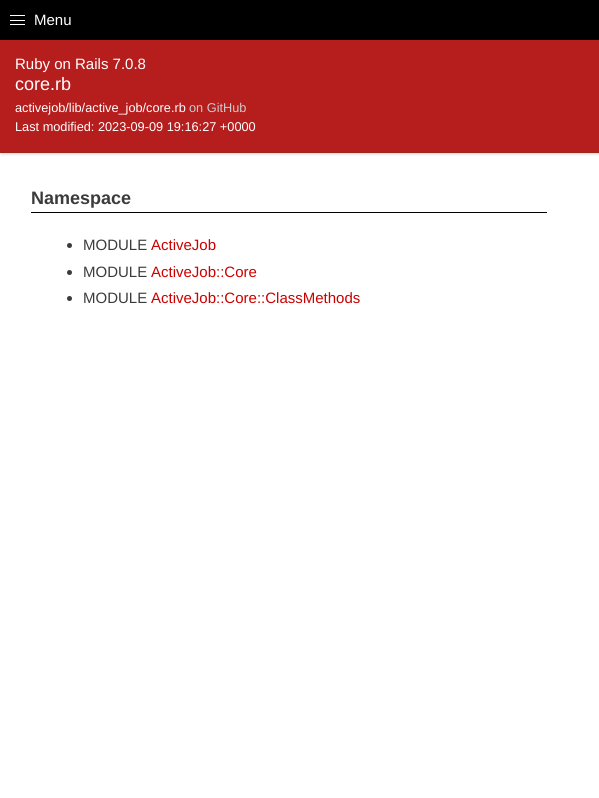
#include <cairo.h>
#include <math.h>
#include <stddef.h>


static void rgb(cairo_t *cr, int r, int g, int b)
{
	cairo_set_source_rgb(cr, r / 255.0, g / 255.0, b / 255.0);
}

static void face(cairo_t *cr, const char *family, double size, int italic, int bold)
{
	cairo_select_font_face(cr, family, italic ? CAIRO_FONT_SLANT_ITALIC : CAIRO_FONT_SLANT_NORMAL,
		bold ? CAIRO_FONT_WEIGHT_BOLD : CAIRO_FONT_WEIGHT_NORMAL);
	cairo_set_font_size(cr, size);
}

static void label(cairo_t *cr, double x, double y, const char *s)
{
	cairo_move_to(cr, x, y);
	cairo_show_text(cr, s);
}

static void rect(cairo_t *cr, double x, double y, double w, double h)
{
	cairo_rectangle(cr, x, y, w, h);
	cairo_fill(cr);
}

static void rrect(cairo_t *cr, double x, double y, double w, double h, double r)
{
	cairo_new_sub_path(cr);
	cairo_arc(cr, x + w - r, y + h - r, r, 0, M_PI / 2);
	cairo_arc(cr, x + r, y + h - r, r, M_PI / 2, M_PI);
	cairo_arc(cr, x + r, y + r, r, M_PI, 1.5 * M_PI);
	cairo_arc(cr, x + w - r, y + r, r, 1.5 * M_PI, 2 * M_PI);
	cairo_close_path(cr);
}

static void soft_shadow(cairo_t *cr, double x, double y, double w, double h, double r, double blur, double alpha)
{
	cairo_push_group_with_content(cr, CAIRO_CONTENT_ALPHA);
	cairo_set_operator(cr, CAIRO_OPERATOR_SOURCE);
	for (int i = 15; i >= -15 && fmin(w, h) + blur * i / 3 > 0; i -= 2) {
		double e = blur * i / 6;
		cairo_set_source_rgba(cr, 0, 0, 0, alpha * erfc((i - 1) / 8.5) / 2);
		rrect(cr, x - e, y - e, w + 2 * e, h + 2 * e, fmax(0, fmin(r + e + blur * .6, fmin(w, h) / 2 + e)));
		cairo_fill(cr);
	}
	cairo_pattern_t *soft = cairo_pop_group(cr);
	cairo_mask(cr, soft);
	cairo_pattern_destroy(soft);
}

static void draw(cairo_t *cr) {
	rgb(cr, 255, 255, 255);
	cairo_paint(cr);
	rgb(cr, 0, 0, 0);
	soft_shadow(cr, 1, 41, 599, 113, 0, 1.5, 0.2);
	rgb(cr, 0, 0, 0);
	rect(cr, 0, 0, 599, 40);
	rgb(cr, 255, 255, 255);
	rect(cr, 10, 15, 15, 1);
	rect(cr, 10, 24, 15, 1);
	rect(cr, 10, 20, 15, 1);
	face(cr, "Liberation Sans", 15, 0, 0);
	label(cr, 34, 25, "Menu");
	rgb(cr, 182, 29, 29);
	rect(cr, 0, 40, 599, 112);
	rgb(cr, 155, 40, 28);
	rect(cr, 0, 152, 599, 1);
	rgb(cr, 255, 255, 255);
	label(cr, 15, 69, "Ruby on Rails 7.0.8");
	face(cr, "Liberation Sans", 18, 0, 0);
	label(cr, 15, 90, "core.rb");
	face(cr, "Liberation Sans", 12.75, 0, 0);
	label(cr, 15, 112, "activejob/lib/active_job/core.rb");
	rgb(cr, 204, 204, 204);
	label(cr, 189, 112, "on GitHub");
	rgb(cr, 255, 255, 255);
	label(cr, 15, 131, "Last modified: 2023-09-09 19:16:27 +0000");
	rgb(cr, 0, 0, 0);
	rect(cr, 31, 212, 516, 1);
	face(cr, "Liberation Sans", 18, 0, 1);
	rgb(cr, 59, 59, 59);
	label(cr, 31, 204, "Namespace");
	cairo_new_path(cr);
	cairo_arc(cr, 69.5, 245.5, 2.5, 0, 2 * M_PI);
	cairo_fill(cr);
	face(cr, "Liberation Sans", 15, 0, 0);
	label(cr, 83, 250, "MODULE");
	rgb(cr, 204, 0, 0);
	label(cr, 151, 250, "ActiveJob");
	rgb(cr, 59, 59, 59);
	cairo_new_path(cr);
	cairo_arc(cr, 69.5, 272.5, 2.5, 0, 2 * M_PI);
	cairo_fill(cr);
	label(cr, 83, 277, "MODULE");
	rgb(cr, 204, 0, 0);
	label(cr, 151, 277, "ActiveJob::Core");
	rgb(cr, 59, 59, 59);
	cairo_new_path(cr);
	cairo_arc(cr, 69.5, 298.5, 2.5, 0, 2 * M_PI);
	cairo_fill(cr);
	label(cr, 83, 303, "MODULE");
	rgb(cr, 204, 0, 0);
	label(cr, 151, 303, "ActiveJob::Core::ClassMethods");
}

int main(void) {
	cairo_surface_t *surface = cairo_image_surface_create(CAIRO_FORMAT_RGB24, 599, 798);
	cairo_t *cr = cairo_create(surface);
	cairo_font_options_t *options = cairo_font_options_create();
	cairo_font_options_set_hint_metrics(options, CAIRO_HINT_METRICS_OFF);
	cairo_font_options_set_hint_style(options, CAIRO_HINT_STYLE_NONE);
	cairo_set_font_options(cr, options);
	cairo_set_miter_limit(cr, 4);
	draw(cr);
	cairo_surface_write_to_png(surface, "render.png");
	cairo_font_options_destroy(options);
	cairo_destroy(cr);
	cairo_surface_destroy(surface);
	return 0;
}
